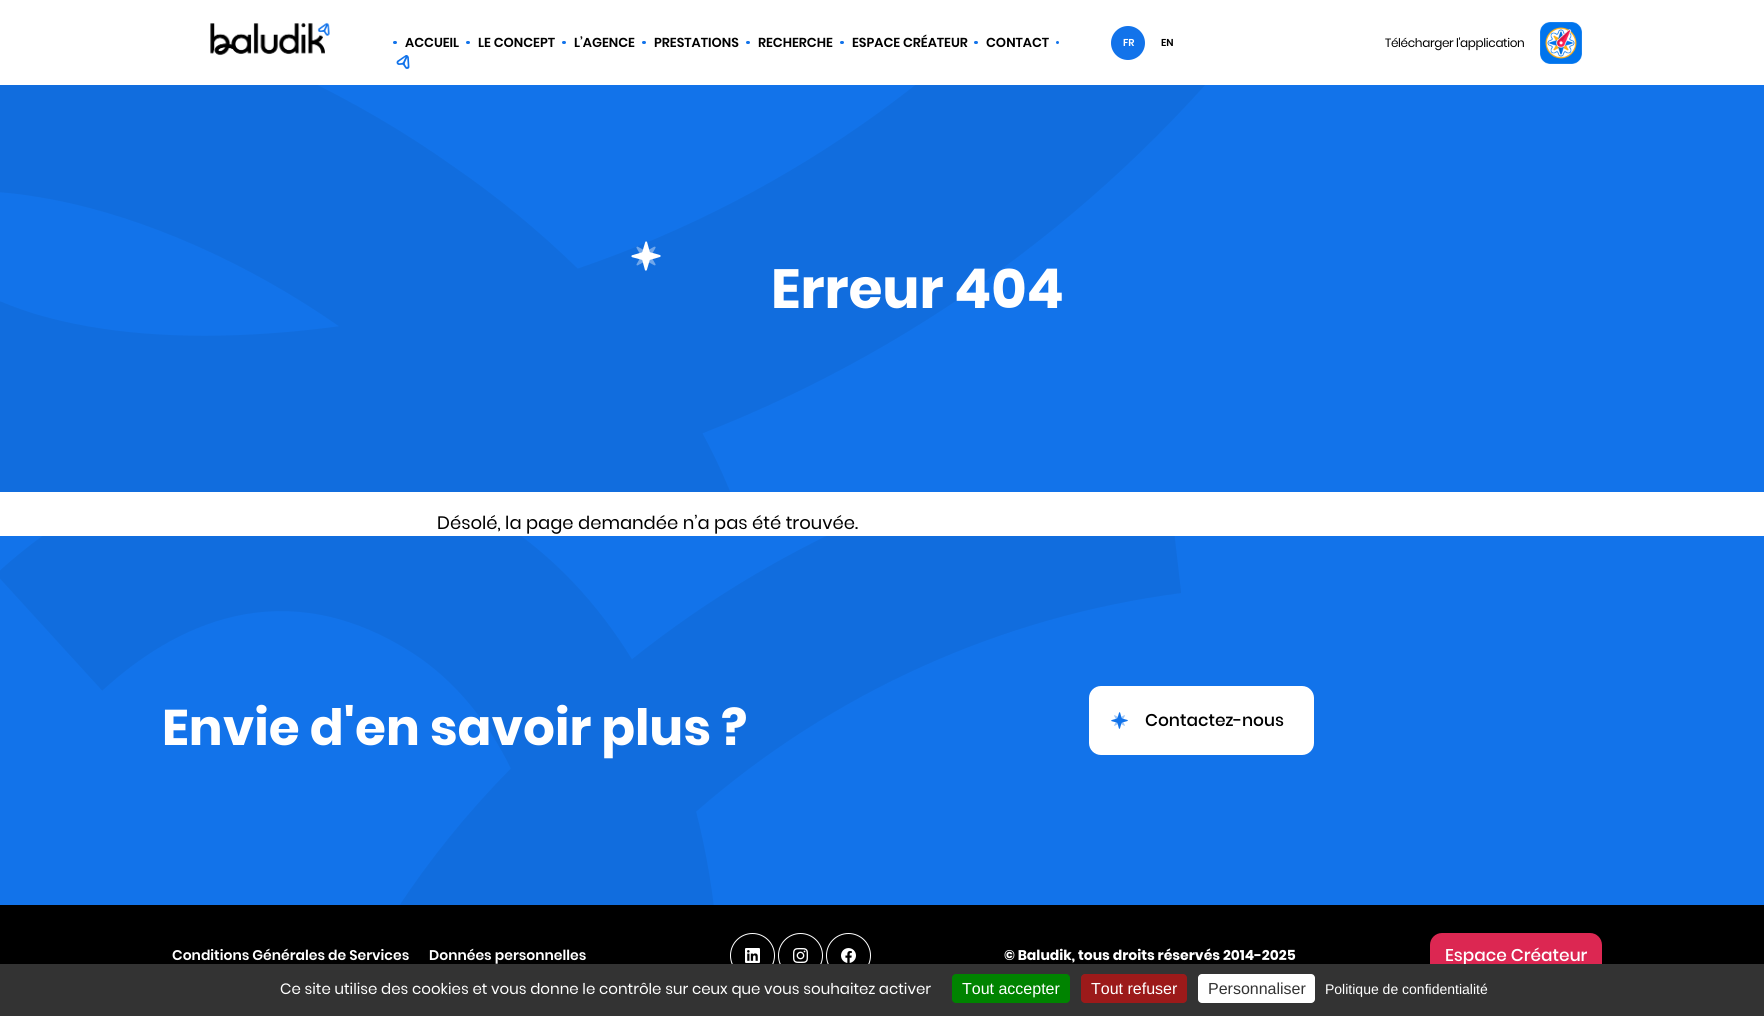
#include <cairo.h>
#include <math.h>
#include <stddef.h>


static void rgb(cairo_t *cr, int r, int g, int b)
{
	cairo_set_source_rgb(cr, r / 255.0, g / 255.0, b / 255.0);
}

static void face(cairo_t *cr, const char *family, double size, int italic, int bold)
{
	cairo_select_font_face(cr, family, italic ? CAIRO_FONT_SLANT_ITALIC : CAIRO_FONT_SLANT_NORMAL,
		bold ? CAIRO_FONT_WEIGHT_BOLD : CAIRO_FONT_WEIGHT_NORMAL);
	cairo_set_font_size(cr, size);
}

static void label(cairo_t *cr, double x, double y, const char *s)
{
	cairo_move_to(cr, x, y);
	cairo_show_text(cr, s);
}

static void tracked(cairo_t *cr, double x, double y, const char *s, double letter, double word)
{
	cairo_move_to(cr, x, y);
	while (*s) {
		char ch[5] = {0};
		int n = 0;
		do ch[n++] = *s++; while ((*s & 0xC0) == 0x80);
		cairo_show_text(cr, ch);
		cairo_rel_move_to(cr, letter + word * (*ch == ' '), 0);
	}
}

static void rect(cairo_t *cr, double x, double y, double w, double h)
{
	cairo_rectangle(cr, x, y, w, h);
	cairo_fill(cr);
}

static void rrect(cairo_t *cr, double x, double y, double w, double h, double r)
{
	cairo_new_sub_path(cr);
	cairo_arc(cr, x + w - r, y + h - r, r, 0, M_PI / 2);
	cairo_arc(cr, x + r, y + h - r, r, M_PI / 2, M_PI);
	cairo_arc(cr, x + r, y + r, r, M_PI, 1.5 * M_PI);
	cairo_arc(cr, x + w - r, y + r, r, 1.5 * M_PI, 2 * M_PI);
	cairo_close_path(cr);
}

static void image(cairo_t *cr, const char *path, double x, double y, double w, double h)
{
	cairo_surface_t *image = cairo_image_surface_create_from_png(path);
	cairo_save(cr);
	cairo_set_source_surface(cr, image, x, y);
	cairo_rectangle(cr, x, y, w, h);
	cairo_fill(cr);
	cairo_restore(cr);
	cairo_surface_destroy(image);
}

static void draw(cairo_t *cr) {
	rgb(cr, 255, 255, 255);
	cairo_paint(cr);
	image(cr, "image0.png", 210, 22, 120, 34);
	rgb(cr, 18, 115, 234);
	rrect(cr, 393, 41, 4, 3, 1.5);
	cairo_fill(cr);
	face(cr, "Poppins SemiBold", 13, 0, 0);
	rgb(cr, 0, 0, 0);
	label(cr, 405, 47, "ACCUEIL");
	rgb(cr, 18, 115, 234);
	rrect(cr, 466, 41, 4, 3, 1.5);
	cairo_fill(cr);
	rgb(cr, 0, 0, 0);
	label(cr, 478, 47, "LE CONCEPT");
	rgb(cr, 18, 115, 234);
	rrect(cr, 562, 41, 4, 3, 1.5);
	cairo_fill(cr);
	rgb(cr, 0, 0, 0);
	label(cr, 574, 47, "L’AGENCE");
	rgb(cr, 18, 115, 234);
	rrect(cr, 642, 41, 4, 3, 1.5);
	cairo_fill(cr);
	rgb(cr, 0, 0, 0);
	label(cr, 654, 47, "PRESTATIONS");
	rgb(cr, 18, 115, 234);
	rrect(cr, 746, 41, 4, 3, 1.5);
	cairo_fill(cr);
	rgb(cr, 0, 0, 0);
	label(cr, 758, 47, "RECHERCHE");
	rgb(cr, 18, 115, 234);
	rrect(cr, 840, 41, 4, 3, 1.5);
	cairo_fill(cr);
	rgb(cr, 0, 0, 0);
	label(cr, 852, 47, "ESPACE CRÉATEUR");
	rgb(cr, 18, 115, 234);
	rrect(cr, 974, 41, 4, 3, 1.5);
	cairo_fill(cr);
	rgb(cr, 0, 0, 0);
	label(cr, 986, 47, "CONTACT");
	rgb(cr, 18, 115, 234);
	cairo_new_path(cr);
	cairo_arc(cr, 1057.5, 42.5, 1.5, 0, 2 * M_PI);
	cairo_fill(cr);
	image(cr, "image1.png", 396, 55, 14, 14);
	cairo_arc(cr, 1128, 43, 17, 0, 2 * M_PI);
	cairo_fill(cr);
	face(cr, "Poppins SemiBold", 10, 0, 0);
	rgb(cr, 255, 255, 255);
	label(cr, 1123, 46, "FR");
	rgb(cr, 0, 0, 0);
	label(cr, 1161, 46, "EN");
	face(cr, "Poppins", 12, 0, 0);
	tracked(cr, 1385, 47, "Télécharger l'application", -0.35, 0);
	image(cr, "image2.png", 1540, 22, 42, 42);
	rgb(cr, 18, 115, 234);
	rect(cr, 0, 85, 1764, 407);
	image(cr, "image3.png", 0, 85, 1205, 407);
	image(cr, "image4.png", 631, 241, 30, 30);
	face(cr, "Poppins", 55, 0, 1);
	rgb(cr, 255, 255, 255);
	label(cr, 771, 308, "Erreur 404");
	face(cr, "Poppins", 18, 0, 0);
	rgb(cr, 0, 0, 0);
	label(cr, 437, 529, "Désolé, la page demandée n’a pas été trouvée.");
	rgb(cr, 18, 115, 234);
	rect(cr, 0, 536, 1764, 369);
	image(cr, "image5.png", 0, 536, 1181, 369);
	face(cr, "Poppins", 50, 0, 1);
	rgb(cr, 255, 255, 255);
	label(cr, 162, 745, "Envie d'en savoir plus ?");
	rrect(cr, 1089, 686, 225, 69, 12);
	cairo_fill(cr);
	image(cr, "image6.png", 1111, 712, 17, 17);
	face(cr, "Poppins Medium", 17, 0, 0);
	rgb(cr, 0, 0, 0);
	label(cr, 1145, 726, "Contactez-nous");
	rect(cr, 0, 905, 1764, 59);
	face(cr, "Poppins SemiBold", 14, 0, 0);
	rgb(cr, 255, 255, 255);
	label(cr, 172, 960, "Conditions Générales de Services");
	label(cr, 429, 960, "Données personnelles");
	cairo_new_path(cr);
	cairo_arc(cr, 752.5, 955.5, 22, 0, 2 * M_PI);
	cairo_set_line_width(cr, 1);
	cairo_stroke(cr);
	image(cr, "image7.png", 745, 948, 15, 15);
	cairo_arc(cr, 800.5, 955.5, 22, 0, 2 * M_PI);
	cairo_stroke(cr);
	image(cr, "image8.png", 793, 948, 15, 15);
	cairo_arc(cr, 848.5, 955.5, 22, 0, 2 * M_PI);
	cairo_stroke(cr);
	image(cr, "image9.png", 841, 948, 15, 15);
	face(cr, "Poppins", 14, 0, 1);
	label(cr, 1004, 960, "© Baludik, tous droits réservés 2014-2025");
	rgb(cr, 220, 39, 82);
	rrect(cr, 1430, 933, 172, 44, 12);
	cairo_fill(cr);
	face(cr, "Poppins Medium", 17, 0, 0);
	rgb(cr, 255, 255, 255);
	label(cr, 1445, 961, "Espace Créateur");
	rgb(cr, 51, 51, 51);
	rect(cr, 0, 964, 1764, 52);
	face(cr, "Poppins", 15, 0, 0);
	rgb(cr, 255, 255, 255);
	label(cr, 280, 994, "Ce site utilise des cookies et vous donne le contrôle sur ceux que vous souhaitez activer");
	rgb(cr, 0, 131, 0);
	rrect(cr, 952, 974, 118, 29, 4);
	cairo_fill(cr);
	face(cr, "Liberation Sans", 16, 0, 0);
	rgb(cr, 255, 255, 255);
	label(cr, 962, 994, "Tout accepter");
	rgb(cr, 156, 26, 26);
	rrect(cr, 1081, 974, 106, 29, 4);
	cairo_fill(cr);
	rgb(cr, 255, 255, 255);
	label(cr, 1091, 994, "Tout refuser");
	rrect(cr, 1198, 974, 117, 29, 4);
	cairo_fill(cr);
	rgb(cr, 51, 51, 51);
	label(cr, 1208, 994, "Personnaliser");
	face(cr, "Liberation Sans", 14, 0, 0);
	rgb(cr, 255, 255, 255);
	label(cr, 1325, 994, "Politique de confidentialité");
}

int main(void) {
	cairo_surface_t *surface = cairo_image_surface_create(CAIRO_FORMAT_RGB24, 1764, 1016);
	cairo_t *cr = cairo_create(surface);
	cairo_font_options_t *options = cairo_font_options_create();
	cairo_font_options_set_hint_metrics(options, CAIRO_HINT_METRICS_OFF);
	cairo_font_options_set_hint_style(options, CAIRO_HINT_STYLE_NONE);
	cairo_set_font_options(cr, options);
	cairo_set_miter_limit(cr, 4);
	draw(cr);
	cairo_surface_write_to_png(surface, "render.png");
	cairo_font_options_destroy(options);
	cairo_destroy(cr);
	cairo_surface_destroy(surface);
	return 0;
}
